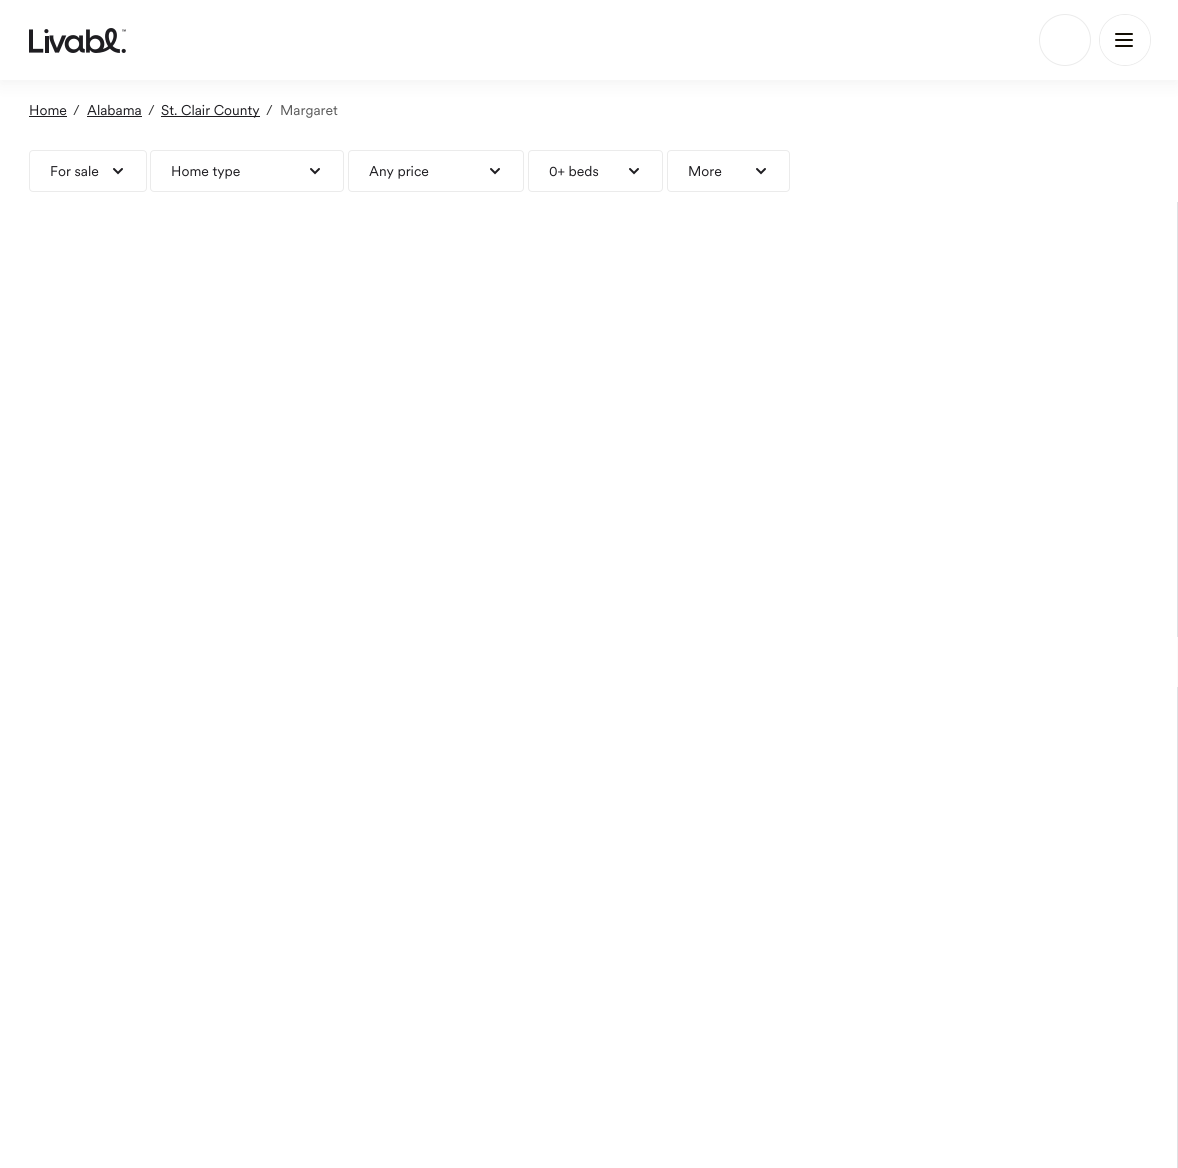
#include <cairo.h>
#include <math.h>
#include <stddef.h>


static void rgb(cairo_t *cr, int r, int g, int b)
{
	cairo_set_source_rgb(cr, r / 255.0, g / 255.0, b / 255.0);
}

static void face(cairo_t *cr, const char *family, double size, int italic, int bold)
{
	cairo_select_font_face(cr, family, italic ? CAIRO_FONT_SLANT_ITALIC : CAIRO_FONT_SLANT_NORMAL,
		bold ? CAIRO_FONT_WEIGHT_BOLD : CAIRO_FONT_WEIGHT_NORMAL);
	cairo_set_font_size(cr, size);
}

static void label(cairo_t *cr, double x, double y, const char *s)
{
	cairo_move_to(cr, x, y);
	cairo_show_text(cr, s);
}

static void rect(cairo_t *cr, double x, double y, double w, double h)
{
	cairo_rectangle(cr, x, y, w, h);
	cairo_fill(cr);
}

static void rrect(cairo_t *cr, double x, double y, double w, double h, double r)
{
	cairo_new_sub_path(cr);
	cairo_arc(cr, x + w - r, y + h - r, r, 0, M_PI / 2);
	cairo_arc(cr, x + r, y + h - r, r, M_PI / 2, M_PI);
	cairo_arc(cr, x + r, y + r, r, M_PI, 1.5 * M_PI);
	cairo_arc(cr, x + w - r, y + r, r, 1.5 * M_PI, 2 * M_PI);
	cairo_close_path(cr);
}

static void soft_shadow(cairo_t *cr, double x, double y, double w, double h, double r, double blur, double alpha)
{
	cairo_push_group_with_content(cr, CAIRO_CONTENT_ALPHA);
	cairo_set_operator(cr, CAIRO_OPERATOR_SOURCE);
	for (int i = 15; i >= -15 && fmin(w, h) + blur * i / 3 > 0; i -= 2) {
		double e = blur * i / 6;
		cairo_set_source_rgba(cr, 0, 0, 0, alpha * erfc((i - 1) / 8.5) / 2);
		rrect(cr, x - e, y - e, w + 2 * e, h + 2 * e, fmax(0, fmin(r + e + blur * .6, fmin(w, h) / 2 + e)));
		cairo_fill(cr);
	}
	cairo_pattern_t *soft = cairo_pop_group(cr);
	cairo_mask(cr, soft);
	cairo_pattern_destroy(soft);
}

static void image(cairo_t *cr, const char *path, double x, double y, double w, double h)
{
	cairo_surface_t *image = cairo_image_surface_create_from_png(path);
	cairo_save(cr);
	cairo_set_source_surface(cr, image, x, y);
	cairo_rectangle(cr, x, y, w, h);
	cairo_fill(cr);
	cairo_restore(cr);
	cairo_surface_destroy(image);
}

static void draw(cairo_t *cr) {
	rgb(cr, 255, 255, 255);
	cairo_paint(cr);
	rgb(cr, 0, 0, 0);
	soft_shadow(cr, 0, 4, 1178, 80, 0, 8.5, 0.05);
	rgb(cr, 255, 255, 255);
	rect(cr, 0, 0, 1178, 80);
	image(cr, "image0.png", 29, 28, 97, 25);
	cairo_arc(cr, 1065, 40, 25.5, 0, 2 * M_PI);
	rgb(cr, 235, 235, 235);
	cairo_set_line_width(cr, 1);
	cairo_stroke(cr);
	cairo_arc(cr, 1125, 40, 25.5, 0, 2 * M_PI);
	cairo_stroke(cr);
	rgb(cr, 255, 255, 255);
	cairo_arc(cr, 1125, 40, 25, 0, 2 * M_PI);
	cairo_fill(cr);
	rgb(cr, 19, 14, 4);
	rrect(cr, 1115, 33, 18, 2, 1);
	cairo_fill(cr);
	rrect(cr, 1115, 39, 18, 2, 1);
	cairo_fill(cr);
	rrect(cr, 1115, 45, 18, 2, 1);
	cairo_fill(cr);
	face(cr, "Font", 14, 0, 0);
	rgb(cr, 30, 29, 33);
	label(cr, 29, 115, "Home");
	rect(cr, 29, 116, 38, 1);
	rgb(cr, 51, 51, 51);
	label(cr, 73, 115, "/");
	rgb(cr, 30, 29, 33);
	label(cr, 87, 115, "Alabama");
	rect(cr, 87, 116, 55, 1);
	rgb(cr, 51, 51, 51);
	label(cr, 148, 115, "/");
	rgb(cr, 30, 29, 33);
	rect(cr, 161, 116, 99, 1);
	label(cr, 161, 115, "St. Clair County");
	rgb(cr, 51, 51, 51);
	label(cr, 266, 115, "/");
	rgb(cr, 89, 89, 89);
	label(cr, 280, 115, "Margaret");
	rrect(cr, 29.5, 150.5, 117, 41, 3.5);
	rgb(cr, 235, 235, 235);
	cairo_stroke(cr);
	rgb(cr, 30, 29, 33);
	label(cr, 50, 176, "For sale");
	cairo_new_path(cr);
	cairo_move_to(cr, 114, 169);
	cairo_line_to(cr, 118, 173);
	cairo_line_to(cr, 122, 169);
	cairo_set_line_width(cr, 2);
	cairo_set_line_cap(cr, CAIRO_LINE_CAP_ROUND);
	cairo_stroke(cr);
	rrect(cr, 150.5, 150.5, 193, 41, 3.5);
	rgb(cr, 235, 235, 235);
	cairo_set_line_width(cr, 1);
	cairo_set_line_cap(cr, CAIRO_LINE_CAP_BUTT);
	cairo_stroke(cr);
	rgb(cr, 30, 29, 33);
	label(cr, 171, 176, "Home type");
	cairo_new_path(cr);
	cairo_move_to(cr, 311, 169);
	cairo_line_to(cr, 315, 173);
	cairo_line_to(cr, 319, 169);
	cairo_set_line_width(cr, 2);
	cairo_set_line_cap(cr, CAIRO_LINE_CAP_ROUND);
	cairo_stroke(cr);
	rrect(cr, 348.5, 150.5, 175, 41, 3.5);
	rgb(cr, 235, 235, 235);
	cairo_set_line_width(cr, 1);
	cairo_set_line_cap(cr, CAIRO_LINE_CAP_BUTT);
	cairo_stroke(cr);
	rgb(cr, 30, 29, 33);
	label(cr, 369, 176, "Any price");
	cairo_new_path(cr);
	cairo_move_to(cr, 491, 169);
	cairo_line_to(cr, 495, 173);
	cairo_line_to(cr, 499, 169);
	cairo_set_line_width(cr, 2);
	cairo_set_line_cap(cr, CAIRO_LINE_CAP_ROUND);
	cairo_stroke(cr);
	rrect(cr, 528.5, 150.5, 134, 41, 3.5);
	rgb(cr, 235, 235, 235);
	cairo_set_line_width(cr, 1);
	cairo_set_line_cap(cr, CAIRO_LINE_CAP_BUTT);
	cairo_stroke(cr);
	rgb(cr, 30, 29, 33);
	label(cr, 549, 176, "0+ beds");
	cairo_new_path(cr);
	cairo_move_to(cr, 630, 169);
	cairo_line_to(cr, 634, 173);
	cairo_line_to(cr, 638, 169);
	cairo_set_line_width(cr, 2);
	cairo_set_line_cap(cr, CAIRO_LINE_CAP_ROUND);
	cairo_stroke(cr);
	rrect(cr, 667.5, 150.5, 122, 41, 3.5);
	rgb(cr, 235, 235, 235);
	cairo_set_line_width(cr, 1);
	cairo_set_line_cap(cr, CAIRO_LINE_CAP_BUTT);
	cairo_stroke(cr);
	rgb(cr, 30, 29, 33);
	label(cr, 688, 176, "More");
	cairo_new_path(cr);
	cairo_move_to(cr, 757, 169);
	cairo_line_to(cr, 761, 173);
	cairo_line_to(cr, 765, 169);
	cairo_set_line_width(cr, 2);
	cairo_set_line_cap(cr, CAIRO_LINE_CAP_ROUND);
	cairo_stroke(cr);
	rgb(cr, 223, 226, 229);
	rect(cr, 1177, 202, 1, 966);
	rgb(cr, 250, 250, 250);
	rect(cr, 1177, 637, 1, 50);
}

int main(void) {
	cairo_surface_t *surface = cairo_image_surface_create(CAIRO_FORMAT_RGB24, 1178, 1168);
	cairo_t *cr = cairo_create(surface);
	cairo_font_options_t *options = cairo_font_options_create();
	cairo_font_options_set_hint_metrics(options, CAIRO_HINT_METRICS_OFF);
	cairo_font_options_set_hint_style(options, CAIRO_HINT_STYLE_NONE);
	cairo_set_font_options(cr, options);
	cairo_set_miter_limit(cr, 4);
	draw(cr);
	cairo_surface_write_to_png(surface, "render.png");
	cairo_font_options_destroy(options);
	cairo_destroy(cr);
	cairo_surface_destroy(surface);
	return 0;
}
